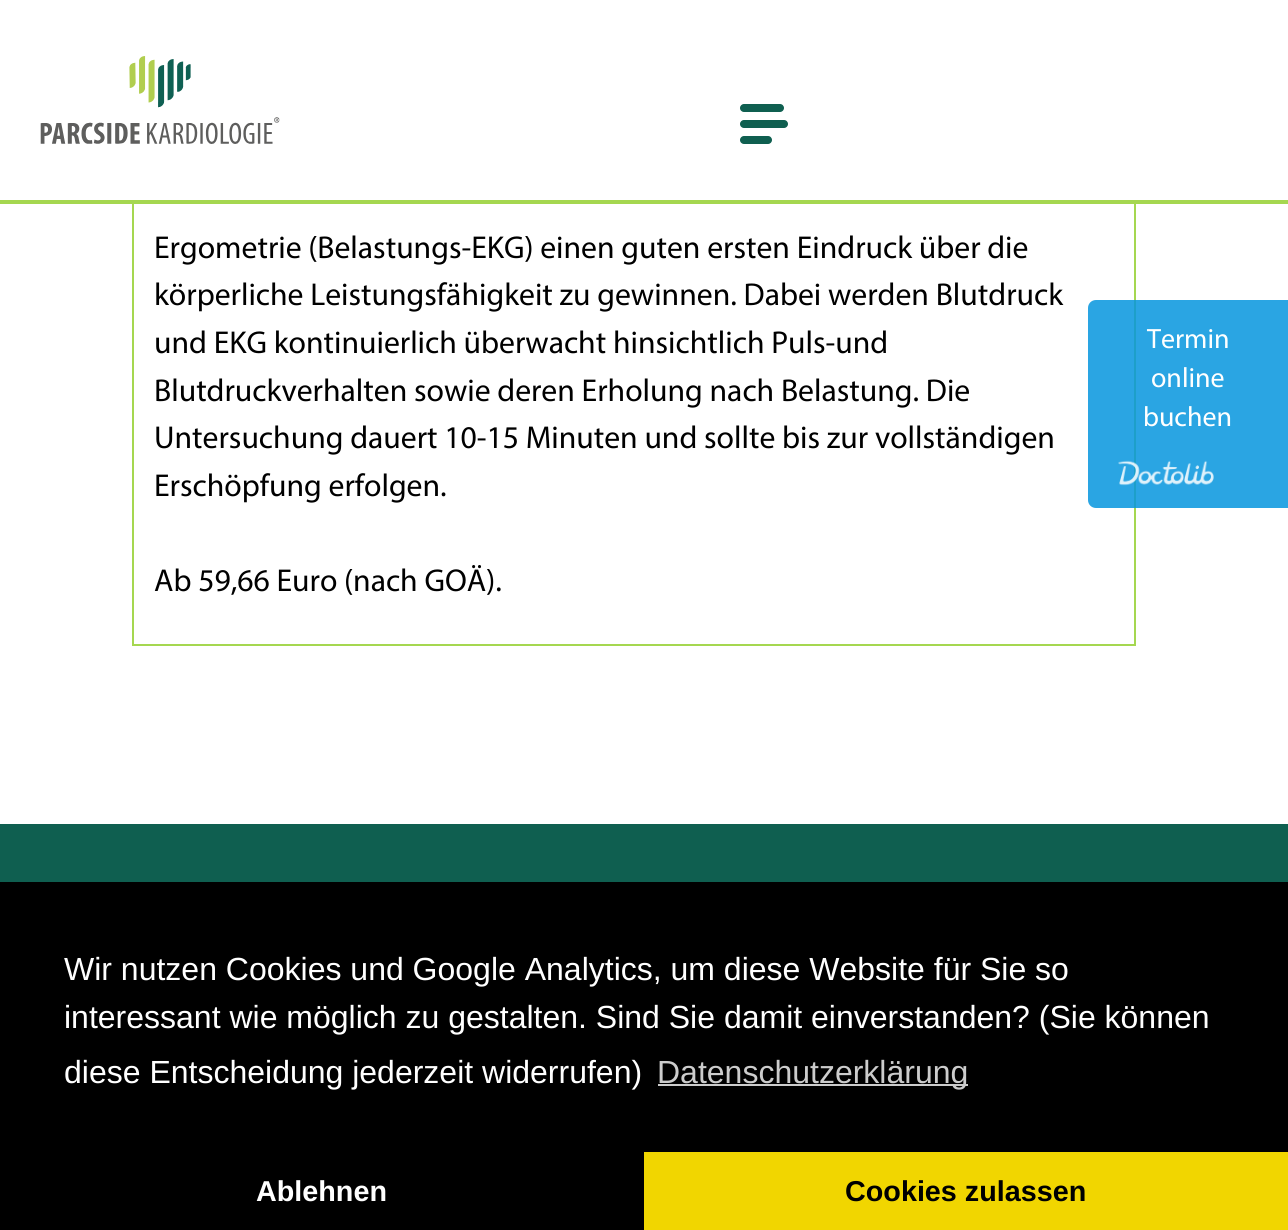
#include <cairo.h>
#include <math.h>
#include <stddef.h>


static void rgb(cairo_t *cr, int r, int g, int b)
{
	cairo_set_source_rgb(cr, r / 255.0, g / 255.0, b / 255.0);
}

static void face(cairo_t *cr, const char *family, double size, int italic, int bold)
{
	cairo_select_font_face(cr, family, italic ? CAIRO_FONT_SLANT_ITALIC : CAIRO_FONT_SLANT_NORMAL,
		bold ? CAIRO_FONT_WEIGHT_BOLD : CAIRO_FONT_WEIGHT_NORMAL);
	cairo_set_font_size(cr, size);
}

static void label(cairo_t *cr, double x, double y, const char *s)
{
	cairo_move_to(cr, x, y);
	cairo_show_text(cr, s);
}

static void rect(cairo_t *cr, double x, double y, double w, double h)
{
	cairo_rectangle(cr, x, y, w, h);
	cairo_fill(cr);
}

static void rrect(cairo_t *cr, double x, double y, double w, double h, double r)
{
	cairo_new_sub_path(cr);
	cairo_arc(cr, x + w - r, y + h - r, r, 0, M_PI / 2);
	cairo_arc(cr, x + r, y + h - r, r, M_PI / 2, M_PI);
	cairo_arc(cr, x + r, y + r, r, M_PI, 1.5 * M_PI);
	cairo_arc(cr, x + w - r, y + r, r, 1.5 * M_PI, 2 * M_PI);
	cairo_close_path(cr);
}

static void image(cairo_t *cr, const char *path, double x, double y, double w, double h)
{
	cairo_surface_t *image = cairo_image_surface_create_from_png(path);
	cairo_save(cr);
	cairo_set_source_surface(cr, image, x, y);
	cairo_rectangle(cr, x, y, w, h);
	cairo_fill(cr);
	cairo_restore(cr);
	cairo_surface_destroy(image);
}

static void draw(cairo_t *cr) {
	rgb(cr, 255, 255, 255);
	cairo_paint(cr);
	cairo_rectangle(cr, 133, 91, 1002, 554);
	rgb(cr, 165, 215, 80);
	cairo_stroke(cr);
	face(cr, "Myriad", 31.7, 0, 0);
	rgb(cr, 0, 0, 0);
	label(cr, 154, 258, "Ergometrie (Belastungs-EKG) einen guten ersten Eindruck über die");
	label(cr, 154, 305, "körperliche Leistungsfähigkeit zu gewinnen. Dabei werden Blutdruck");
	label(cr, 154, 353, "und EKG kontinuierlich überwacht hinsichtlich Puls-und");
	label(cr, 154, 401, "Blutdruckverhalten sowie deren Erholung nach Belastung. Die");
	label(cr, 154, 448, "Untersuchung dauert 10-15 Minuten und sollte bis zur vollständigen");
	label(cr, 154, 496, "Erschöpfung erfolgen.");
	label(cr, 154, 591, "Ab 59,66 Euro (nach GOÄ).");
	rgb(cr, 255, 255, 255);
	rect(cr, 132, 90, 1004, 110);
	rgb(cr, 165, 215, 80);
	rect(cr, 0, 200, 1288, 4);
	image(cr, "image0.png", 40, 56, 240, 88);
	rgb(cr, 15, 95, 80);
	rrect(cr, 740, 120, 48, 8, 4);
	cairo_fill(cr);
	rrect(cr, 740, 104, 44, 8, 4);
	cairo_fill(cr);
	rrect(cr, 740, 136, 32, 8, 4);
	cairo_fill(cr);
	cairo_set_source_rgba(cr, 0.02, 0.588, 0.871, 0.85);
	cairo_new_path(cr);
	cairo_move_to(cr, 1096, 300);
	cairo_line_to(cr, 1288, 300);
	cairo_line_to(cr, 1288, 508);
	cairo_line_to(cr, 1096, 508);
	cairo_curve_to(cr, 1091.5, 508, 1088, 504.5, 1088, 500);
	cairo_line_to(cr, 1088, 308);
	cairo_curve_to(cr, 1088, 303.5, 1091.5, 300, 1096, 300);
	cairo_close_path(cr);
	cairo_fill(cr);
	face(cr, "Myriad", 28, 0, 0);
	rgb(cr, 255, 255, 255);
	label(cr, 1147, 348, "Termin");
	label(cr, 1151, 387, "online");
	label(cr, 1143, 426, "buchen");
	image(cr, "image1.png", 1118, 460, 96, 26);
	rgb(cr, 15, 95, 80);
	rect(cr, 0, 824, 1288, 58);
	rgb(cr, 0, 0, 0);
	rect(cr, 0, 882, 1288, 348);
	face(cr, "Liberation Sans", 32, 0, 0);
	rgb(cr, 255, 255, 255);
	label(cr, 64, 980, "Wir nutzen Cookies und Google Analytics, um diese Website für Sie so");
	label(cr, 64, 1028, "interessant wie möglich zu gestalten. Sind Sie damit einverstanden? (Sie können");
	label(cr, 64, 1083, "diese Entscheidung jederzeit widerrufen)");
	rgb(cr, 204, 204, 204);
	rect(cr, 658, 1084, 310, 2);
	label(cr, 657, 1083, "Datenschutzerklärung");
	face(cr, "Liberation Sans", 28.75, 0, 1);
	rgb(cr, 255, 255, 255);
	label(cr, 256, 1201, "Ablehnen");
	rgb(cr, 241, 214, 0);
	rect(cr, 644, 1152, 644, 78);
	rgb(cr, 0, 0, 0);
	label(cr, 845, 1201, "Cookies zulassen");
}

int main(void) {
	cairo_surface_t *surface = cairo_image_surface_create(CAIRO_FORMAT_RGB24, 1288, 1230);
	cairo_t *cr = cairo_create(surface);
	cairo_font_options_t *options = cairo_font_options_create();
	cairo_font_options_set_hint_metrics(options, CAIRO_HINT_METRICS_OFF);
	cairo_font_options_set_hint_style(options, CAIRO_HINT_STYLE_NONE);
	cairo_set_font_options(cr, options);
	cairo_set_miter_limit(cr, 4);
	draw(cr);
	cairo_surface_write_to_png(surface, "render.png");
	cairo_font_options_destroy(options);
	cairo_destroy(cr);
	cairo_surface_destroy(surface);
	return 0;
}
